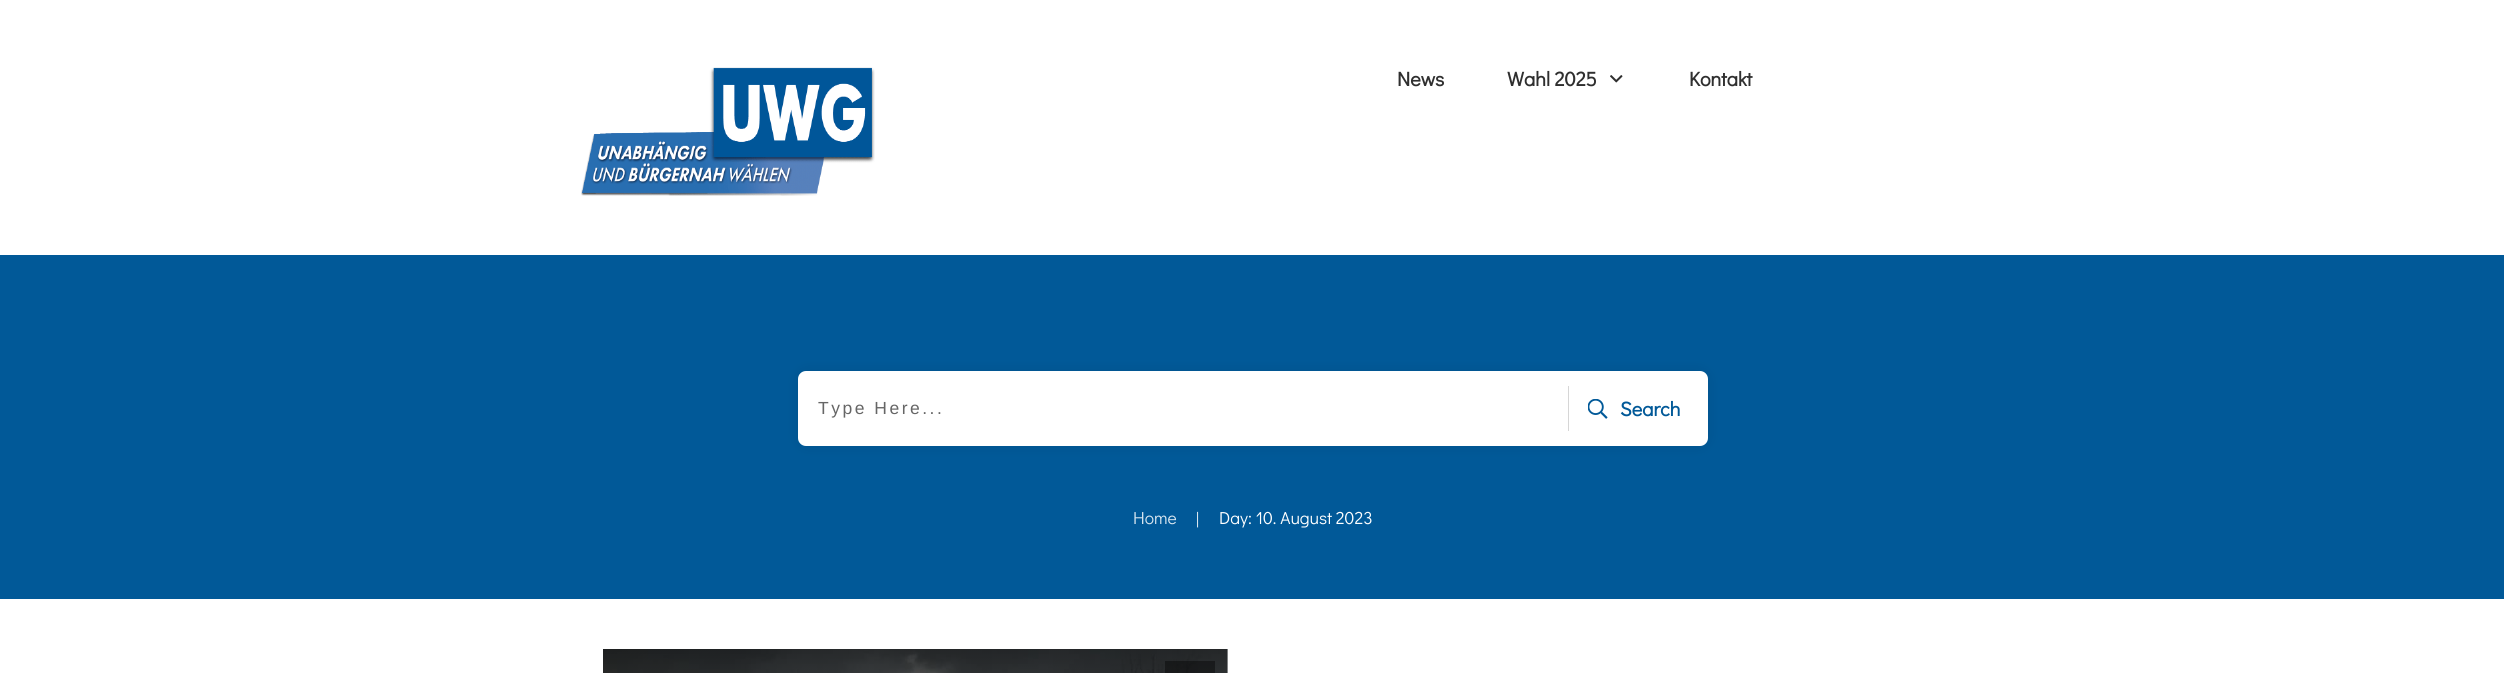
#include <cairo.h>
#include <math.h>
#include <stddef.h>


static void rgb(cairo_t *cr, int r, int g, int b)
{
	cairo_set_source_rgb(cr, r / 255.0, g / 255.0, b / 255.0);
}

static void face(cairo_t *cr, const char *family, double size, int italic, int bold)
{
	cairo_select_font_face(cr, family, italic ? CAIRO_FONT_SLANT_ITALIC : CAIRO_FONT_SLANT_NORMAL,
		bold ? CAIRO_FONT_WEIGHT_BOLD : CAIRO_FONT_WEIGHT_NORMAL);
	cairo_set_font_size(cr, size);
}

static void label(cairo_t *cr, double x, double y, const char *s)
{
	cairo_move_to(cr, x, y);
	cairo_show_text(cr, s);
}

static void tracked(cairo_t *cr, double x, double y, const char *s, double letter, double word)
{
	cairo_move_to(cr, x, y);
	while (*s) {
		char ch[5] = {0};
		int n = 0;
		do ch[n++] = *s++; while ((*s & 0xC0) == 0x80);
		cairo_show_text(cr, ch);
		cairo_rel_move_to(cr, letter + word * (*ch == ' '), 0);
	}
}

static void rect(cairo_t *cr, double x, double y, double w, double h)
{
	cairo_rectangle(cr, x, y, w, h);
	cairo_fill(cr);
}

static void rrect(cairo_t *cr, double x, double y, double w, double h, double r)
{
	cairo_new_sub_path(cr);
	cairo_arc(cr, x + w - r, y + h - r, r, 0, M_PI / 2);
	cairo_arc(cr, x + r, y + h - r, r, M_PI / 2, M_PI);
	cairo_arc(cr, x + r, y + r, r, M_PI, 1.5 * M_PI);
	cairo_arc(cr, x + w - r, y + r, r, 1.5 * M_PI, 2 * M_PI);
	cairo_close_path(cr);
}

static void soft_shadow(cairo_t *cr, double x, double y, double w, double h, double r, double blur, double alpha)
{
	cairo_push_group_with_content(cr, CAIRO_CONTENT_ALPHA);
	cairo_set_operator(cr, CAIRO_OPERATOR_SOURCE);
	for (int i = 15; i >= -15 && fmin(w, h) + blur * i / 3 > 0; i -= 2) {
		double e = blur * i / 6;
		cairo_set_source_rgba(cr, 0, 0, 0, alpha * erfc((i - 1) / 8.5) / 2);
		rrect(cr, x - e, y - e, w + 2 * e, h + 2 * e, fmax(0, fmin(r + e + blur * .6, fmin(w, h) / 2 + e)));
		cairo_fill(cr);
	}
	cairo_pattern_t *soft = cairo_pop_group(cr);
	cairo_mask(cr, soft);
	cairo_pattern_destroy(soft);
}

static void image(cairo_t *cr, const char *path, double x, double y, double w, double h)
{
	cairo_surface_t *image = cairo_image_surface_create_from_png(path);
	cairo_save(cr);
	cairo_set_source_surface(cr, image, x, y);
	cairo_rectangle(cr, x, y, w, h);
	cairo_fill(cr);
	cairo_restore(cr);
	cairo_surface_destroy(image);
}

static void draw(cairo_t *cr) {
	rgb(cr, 255, 255, 255);
	cairo_paint(cr);
	image(cr, "image0.png", 581, 67, 294, 129);
	face(cr, "Didact Gothic", 20, 0, 1);
	rgb(cr, 47, 47, 47);
	label(cr, 1397, 86, "News");
	label(cr, 1507, 86, "Wahl 2025");
	image(cr, "image1.png", 1610, 75, 13, 8);
	label(cr, 1689, 86, "Kontakt");
	rgb(cr, 1, 89, 152);
	rect(cr, 0, 255, 2504, 344);
	rgb(cr, 0, 0, 0);
	soft_shadow(cr, 798, 371, 910, 75, 8, 7, 0.08);
	rgb(cr, 255, 255, 255);
	rrect(cr, 798, 371, 910, 75, 8);
	cairo_fill(cr);
	face(cr, "Liberation Sans", 17.5, 0, 0);
	rgb(cr, 102, 102, 102);
	tracked(cr, 818, 414, "Type Here...", 2.5, 0);
	rgb(cr, 214, 214, 214);
	rect(cr, 1568, 386, 1, 45);
	image(cr, "image2.png", 1588, 399, 20, 20);
	face(cr, "Didact Gothic", 20, 0, 1);
	rgb(cr, 1, 89, 152);
	label(cr, 1620, 416, "Search");
	face(cr, "Didact Gothic", 17.5, 0, 0);
	rgb(cr, 217, 230, 240);
	label(cr, 1133, 524, "Home");
	rgb(cr, 255, 255, 255);
	label(cr, 1196, 525, "|");
	label(cr, 1219, 524, "Day: 10. August 2023");
	image(cr, "image3.png", 603, 649, 625, 24);
	cairo_set_source_rgba(cr, 0, 0, 0, 0.4);
	rect(cr, 1165, 661, 50, 12);
}

int main(void) {
	cairo_surface_t *surface = cairo_image_surface_create(CAIRO_FORMAT_RGB24, 2504, 673);
	cairo_t *cr = cairo_create(surface);
	cairo_font_options_t *options = cairo_font_options_create();
	cairo_font_options_set_hint_metrics(options, CAIRO_HINT_METRICS_OFF);
	cairo_font_options_set_hint_style(options, CAIRO_HINT_STYLE_NONE);
	cairo_set_font_options(cr, options);
	cairo_set_miter_limit(cr, 4);
	draw(cr);
	cairo_surface_write_to_png(surface, "render.png");
	cairo_font_options_destroy(options);
	cairo_destroy(cr);
	cairo_surface_destroy(surface);
	return 0;
}
